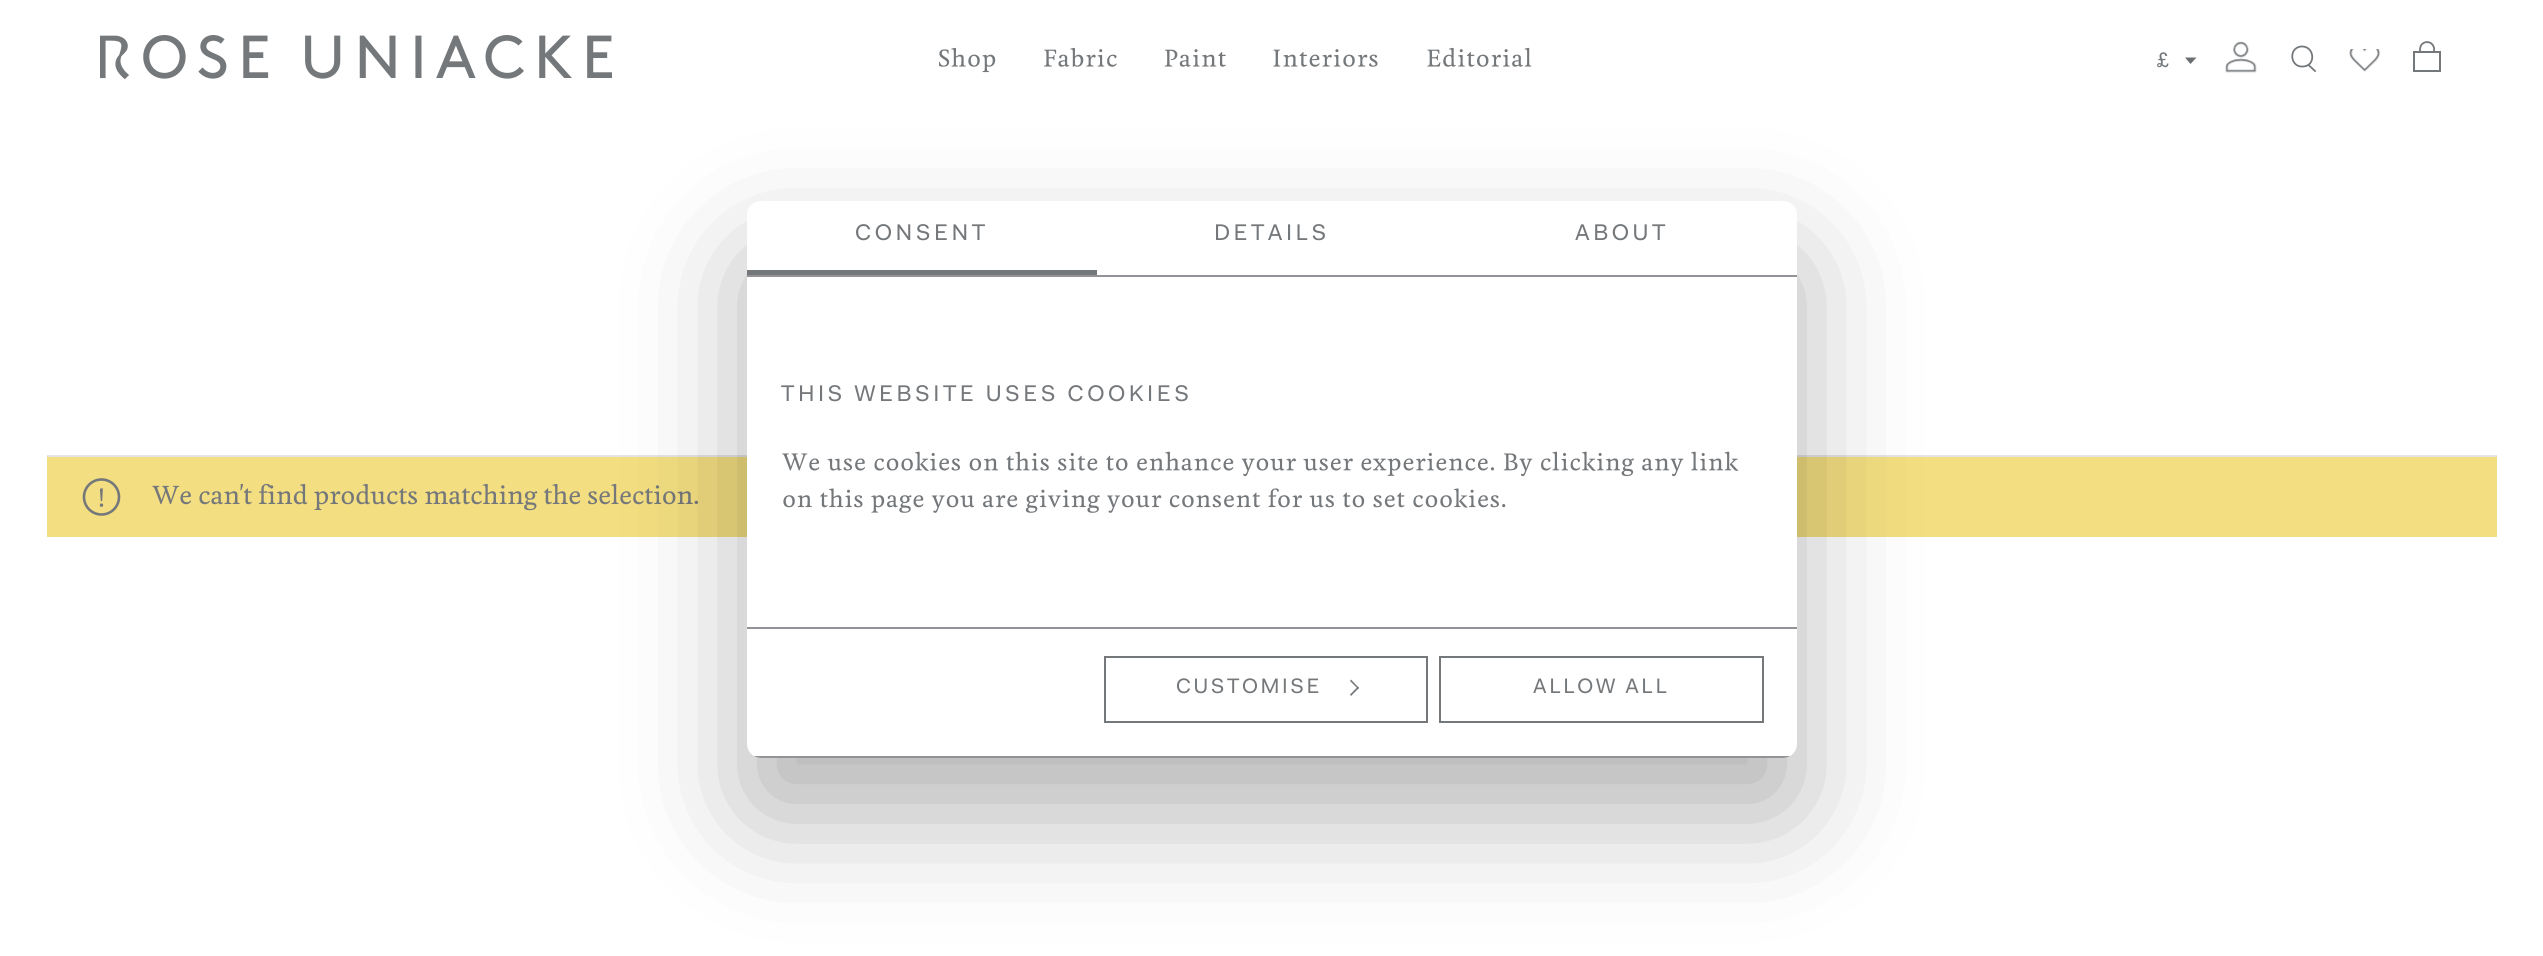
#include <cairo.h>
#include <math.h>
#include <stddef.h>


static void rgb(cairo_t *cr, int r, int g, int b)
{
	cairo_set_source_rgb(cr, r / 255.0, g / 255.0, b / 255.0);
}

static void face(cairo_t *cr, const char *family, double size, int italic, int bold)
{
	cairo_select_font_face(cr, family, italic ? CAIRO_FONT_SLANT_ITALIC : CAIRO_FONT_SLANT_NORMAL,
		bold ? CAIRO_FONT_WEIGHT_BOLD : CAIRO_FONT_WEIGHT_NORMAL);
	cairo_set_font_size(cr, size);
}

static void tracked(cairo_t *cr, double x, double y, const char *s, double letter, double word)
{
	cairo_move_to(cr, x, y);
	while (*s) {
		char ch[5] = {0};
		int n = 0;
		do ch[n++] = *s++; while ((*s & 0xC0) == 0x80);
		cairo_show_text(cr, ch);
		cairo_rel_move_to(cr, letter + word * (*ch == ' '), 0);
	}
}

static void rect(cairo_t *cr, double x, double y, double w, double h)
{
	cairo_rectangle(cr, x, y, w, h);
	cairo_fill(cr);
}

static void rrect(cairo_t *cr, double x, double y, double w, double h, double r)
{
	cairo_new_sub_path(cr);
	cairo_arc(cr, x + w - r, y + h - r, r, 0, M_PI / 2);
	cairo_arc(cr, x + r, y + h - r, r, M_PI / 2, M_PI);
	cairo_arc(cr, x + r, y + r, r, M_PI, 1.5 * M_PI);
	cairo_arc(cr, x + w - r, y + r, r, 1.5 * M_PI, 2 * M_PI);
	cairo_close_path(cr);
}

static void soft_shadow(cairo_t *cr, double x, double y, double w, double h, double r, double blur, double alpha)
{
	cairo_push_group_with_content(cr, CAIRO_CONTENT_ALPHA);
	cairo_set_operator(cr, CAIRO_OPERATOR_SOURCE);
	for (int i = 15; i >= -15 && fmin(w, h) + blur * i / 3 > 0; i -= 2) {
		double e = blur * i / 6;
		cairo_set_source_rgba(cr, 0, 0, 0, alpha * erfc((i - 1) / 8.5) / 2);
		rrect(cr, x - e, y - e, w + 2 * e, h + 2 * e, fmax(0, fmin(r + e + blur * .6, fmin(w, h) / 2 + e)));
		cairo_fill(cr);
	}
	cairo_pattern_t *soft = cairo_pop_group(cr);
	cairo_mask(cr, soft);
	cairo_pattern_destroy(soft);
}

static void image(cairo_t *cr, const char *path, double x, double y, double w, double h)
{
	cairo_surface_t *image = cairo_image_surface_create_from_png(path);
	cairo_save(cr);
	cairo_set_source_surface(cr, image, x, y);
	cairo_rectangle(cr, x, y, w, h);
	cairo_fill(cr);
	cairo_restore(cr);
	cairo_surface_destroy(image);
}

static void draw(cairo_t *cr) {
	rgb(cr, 255, 255, 255);
	cairo_paint(cr);
	image(cr, "image0.png", 100, 35, 512, 45);
	image(cr, "image1.png", 939, 47, 57, 26);
	image(cr, "image2.png", 1044, 47, 73, 20);
	image(cr, "image3.png", 1164, 49, 62, 18);
	image(cr, "image4.png", 1273, 49, 105, 18);
	image(cr, "image5.png", 1427, 47, 105, 20);
	face(cr, "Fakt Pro", 21, 0, 0);
	rgb(cr, 117, 120, 123);
	tracked(cr, 2157, 67, "£", 2, 0);
	rgb(cr, 107, 110, 112);
	cairo_new_path(cr);
	cairo_move_to(cr, 2190.5, 64);
	cairo_line_to(cr, 2185, 57.5);
	cairo_line_to(cr, 2196.5, 57.5);
	cairo_close_path(cr);
	cairo_fill(cr);
	image(cr, "image6.png", 2225, 41, 32, 32);
	cairo_new_path(cr);
	cairo_move_to(cr, 2303.5, 66.5);
	cairo_curve_to(cr, 2290, 68, 2288, 48, 2301, 46.5);
	cairo_curve_to(cr, 2314.5, 45.5, 2316.5, 65.5, 2303.5, 66.5);
	cairo_close_path(cr);
	rgb(cr, 117, 120, 123);
	cairo_set_line_width(cr, 1.8);
	cairo_stroke(cr);
	cairo_new_path(cr);
	cairo_move_to(cr, 2308.5, 65);
	cairo_line_to(cr, 2315, 71);
	cairo_set_line_cap(cr, CAIRO_LINE_CAP_SQUARE);
	cairo_stroke(cr);
	image(cr, "image7.png", 2349, 49, 32, 23);
	cairo_new_path(cr);
	cairo_move_to(cr, 2420, 51);
	cairo_curve_to(cr, 2420, 49, 2420, 47.5, 2421, 45.5);
	cairo_curve_to(cr, 2424, 40.5, 2431.5, 41, 2433.5, 46.5);
	cairo_curve_to(cr, 2434.5, 48, 2434, 49, 2434, 51);
	cairo_stroke(cr);
	cairo_rectangle(cr, 2414, 52, 26, 19);
	cairo_set_line_width(cr, 2);
	cairo_set_line_cap(cr, CAIRO_LINE_CAP_BUTT);
	cairo_stroke(cr);
	rgb(cr, 229, 229, 229);
	rect(cr, 47, 455, 2450, 2);
	rgb(cr, 243, 222, 129);
	rect(cr, 47, 457, 2450, 80);
	image(cr, "image8.png", 82, 478, 39, 38);
	image(cr, "image9.png", 152, 483, 546, 28);
	rgb(cr, 0, 0, 0);
	soft_shadow(cr, 747, 257, 1050, 557, 14, 59.5, 0.3);
	rgb(cr, 255, 255, 255);
	rrect(cr, 747, 201, 1050, 557, 14);
	cairo_fill(cr);
	rgb(cr, 148, 146, 150);
	rect(cr, 747, 275, 1050, 2);
	rgb(cr, 117, 120, 123);
	rect(cr, 747, 270, 350, 5);
	face(cr, "Fakt Pro", 22.75, 0, 0);
	tracked(cr, 855, 240, "CONSENT", 3.5, 0);
	tracked(cr, 1214, 240, "DETAILS", 3.5, 0);
	tracked(cr, 1575, 240, "ABOUT", 3.5, 0);
	rgb(cr, 148, 146, 150);
	rect(cr, 747, 627, 1050, 2);
	rgb(cr, 117, 120, 123);
	tracked(cr, 781, 401, "THIS WEBSITE USES COOKIES", 3.5, 0);
	image(cr, "image10.png", 782, 451, 957, 26);
	image(cr, "image11.png", 783, 488, 723, 25);
	cairo_save(cr);
	rrect(cr, 747, 201, 1050, 557, 14);
	cairo_clip(cr);
	rgb(cr, 148, 146, 150);
	rect(cr, 747, 756, 1050, 2);
	cairo_restore(cr);
	cairo_rectangle(cr, 1105, 657, 322, 65);
	cairo_stroke(cr);
	face(cr, "Fakt Pro", 21, 0, 0);
	tracked(cr, 1176, 693, "CUSTOMISE", 2.6, 0);
	cairo_new_path(cr);
	cairo_move_to(cr, 1351, 679.5);
	cairo_line_to(cr, 1359, 688);
	cairo_line_to(cr, 1358, 689);
	cairo_line_to(cr, 1350, 681);
	cairo_close_path(cr);
	cairo_fill(cr);
	cairo_new_path(cr);
	cairo_move_to(cr, 1358, 686.5);
	cairo_line_to(cr, 1359, 688);
	cairo_line_to(cr, 1351, 696);
	cairo_line_to(cr, 1350, 694.5);
	cairo_close_path(cr);
	cairo_fill(cr);
	cairo_rectangle(cr, 1440, 657, 323, 65);
	cairo_stroke(cr);
	tracked(cr, 1533, 693, "ALLOW ALL", 2.6, 0);
}

int main(void) {
	cairo_surface_t *surface = cairo_image_surface_create(CAIRO_FORMAT_RGB24, 2543, 956);
	cairo_t *cr = cairo_create(surface);
	cairo_font_options_t *options = cairo_font_options_create();
	cairo_font_options_set_hint_metrics(options, CAIRO_HINT_METRICS_OFF);
	cairo_font_options_set_hint_style(options, CAIRO_HINT_STYLE_NONE);
	cairo_set_font_options(cr, options);
	cairo_set_miter_limit(cr, 4);
	draw(cr);
	cairo_surface_write_to_png(surface, "render.png");
	cairo_font_options_destroy(options);
	cairo_destroy(cr);
	cairo_surface_destroy(surface);
	return 0;
}
